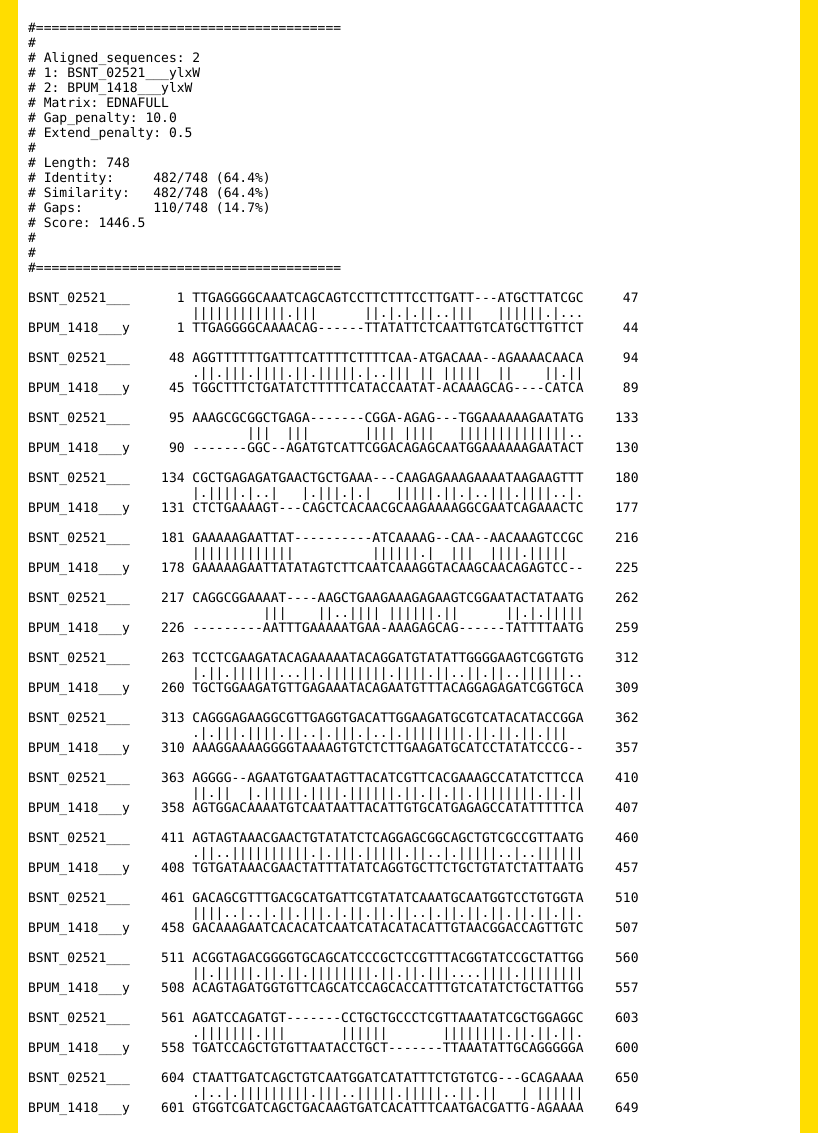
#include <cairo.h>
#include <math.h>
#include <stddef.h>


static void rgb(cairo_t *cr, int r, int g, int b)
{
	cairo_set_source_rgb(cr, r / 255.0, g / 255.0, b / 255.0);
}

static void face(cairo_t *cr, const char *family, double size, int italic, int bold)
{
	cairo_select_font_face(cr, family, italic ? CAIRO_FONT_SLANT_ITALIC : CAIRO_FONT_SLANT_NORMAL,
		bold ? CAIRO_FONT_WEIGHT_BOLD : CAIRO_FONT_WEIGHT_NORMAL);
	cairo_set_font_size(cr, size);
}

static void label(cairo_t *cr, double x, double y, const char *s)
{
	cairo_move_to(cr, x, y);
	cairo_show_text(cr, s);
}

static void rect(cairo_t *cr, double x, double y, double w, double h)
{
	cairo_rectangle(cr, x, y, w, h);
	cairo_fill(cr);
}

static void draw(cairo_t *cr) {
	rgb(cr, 255, 221, 0);
	cairo_paint(cr);
	rgb(cr, 255, 255, 255);
	rect(cr, 18, 0, 782, 1133);
	face(cr, "DejaVu Sans Mono", 13, 0, 0);
	rgb(cr, 0, 0, 0);
	label(cr, 28, 32, "#=======================================");
	label(cr, 28, 47, "#");
	label(cr, 28, 62, "# Aligned_sequences: 2");
	label(cr, 28, 77, "# 1: BSNT_02521___ylxW");
	label(cr, 28, 92, "# 2: BPUM_1418___ylxW");
	label(cr, 28, 107, "# Matrix: EDNAFULL");
	label(cr, 28, 122, "# Gap_penalty: 10.0");
	label(cr, 28, 137, "# Extend_penalty: 0.5");
	label(cr, 28, 152, "#");
	label(cr, 28, 167, "# Length: 748");
	label(cr, 28, 182, "# Identity:     482/748 (64.4%)");
	label(cr, 28, 197, "# Similarity:   482/748 (64.4%)");
	label(cr, 28, 212, "# Gaps:         110/748 (14.7%)");
	label(cr, 28, 227, "# Score: 1446.5");
	label(cr, 28, 242, "#");
	label(cr, 28, 257, "#");
	label(cr, 28, 272, "#=======================================");
	label(cr, 28, 302, "BSNT_02521___      1 TTGAGGGGCAAATCAGCAGTCCTTCTTTCCTTGATT---ATGCTTATCGC     47");
	label(cr, 192, 317, "||||||||||||.|||      ||.|.|.||..|||   ||||||.|...");
	label(cr, 28, 332, "BPUM_1418___y      1 TTGAGGGGCAAAACAG------TTATATTCTCAATTGTCATGCTTGTTCT     44");
	label(cr, 28, 362, "BSNT_02521___     48 AGGTTTTTTGATTTCATTTTCTTTTCAA-ATGACAAA--AGAAAACAACA     94");
	label(cr, 192, 377, ".||.|||.||||.||.|||||.|..||| || |||||  ||    ||.||");
	label(cr, 28, 392, "BPUM_1418___y     45 TGGCTTTCTGATATCTTTTTCATACCAATAT-ACAAAGCAG----CATCA     89");
	label(cr, 28, 422, "BSNT_02521___     95 AAAGCGCGGCTGAGA-------CGGA-AGAG---TGGAAAAAAGAATATG    133");
	label(cr, 247, 437, "|||  |||       |||| ||||   ||||||||||||||..");
	label(cr, 28, 452, "BPUM_1418___y     90 -------GGC--AGATGTCATTCGGACAGAGCAATGGAAAAAAGAATACT    130");
	label(cr, 28, 482, "BSNT_02521___    134 CGCTGAGAGATGAACTGCTGAAA---CAAGAGAAAGAAAATAAGAAGTTT    180");
	label(cr, 192, 497, "|.||||.|..|   |.|||.|.|   |||||.||.|..|||.||||..|.");
	label(cr, 28, 512, "BPUM_1418___y    131 CTCTGAAAAGT---CAGCTCACAACGCAAGAAAAGGCGAATCAGAAACTC    177");
	label(cr, 28, 542, "BSNT_02521___    181 GAAAAAGAATTAT----------ATCAAAAG--CAA--AACAAAGTCCGC    216");
	label(cr, 192, 557, "|||||||||||||          ||||||.|  |||  ||||.|||||");
	label(cr, 28, 572, "BPUM_1418___y    178 GAAAAAGAATTATATAGTCTTCAATCAAAGGTACAAGCAACAGAGTCC--    225");
	label(cr, 28, 602, "BSNT_02521___    217 CAGGCGGAAAAT----AAGCTGAAGAAAGAGAAGTCGGAATACTATAATG    262");
	label(cr, 263, 617, "|||    ||..|||| ||||||.||      ||.|.|||||");
	label(cr, 28, 632, "BPUM_1418___y    226 ---------AATTTGAAAAATGAA-AAAGAGCAG------TATTTTAATG    259");
	label(cr, 28, 662, "BSNT_02521___    263 TCCTCGAAGATACAGAAAAATACAGGATGTATATTGGGGAAGTCGGTGTG    312");
	label(cr, 192, 677, "|.||.||||||...||.||||||||.||||.||..||.||..||||||..");
	label(cr, 28, 692, "BPUM_1418___y    260 TGCTGGAAGATGTTGAGAAATACAGAATGTTTACAGGAGAGATCGGTGCA    309");
	label(cr, 28, 722, "BSNT_02521___    313 CAGGGAGAAGGCGTTGAGGTGACATTGGAAGATGCGTCATACATACCGGA    362");
	label(cr, 192, 737, ".|.|||.||||.||..|.|||.|..|.||||||||.||.||.||.|||");
	label(cr, 28, 752, "BPUM_1418___y    310 AAAGGAAAAGGGGTAAAAGTGTCTCTTGAAGATGCATCCTATATCCCG--    357");
	label(cr, 28, 782, "BSNT_02521___    363 AGGGG--AGAATGTGAATAGTTACATCGTTCACGAAAGCCATATCTTCCA    410");
	label(cr, 192, 797, "||.||  |.|||||.||||.||||||.||.||.||.||||||||.||.||");
	label(cr, 28, 812, "BPUM_1418___y    358 AGTGGACAAAATGTCAATAATTACATTGTGCATGAGAGCCATATTTTTCA    407");
	label(cr, 28, 842, "BSNT_02521___    411 AGTAGTAAACGAACTGTATATCTCAGGAGCGGCAGCTGTCGCCGTTAATG    460");
	label(cr, 192, 857, ".||..||||||||||.|.|||.|||||.||..|.|||||..|..||||||");
	label(cr, 28, 872, "BPUM_1418___y    408 TGTGATAAACGAACTATTTATATCAGGTGCTTCTGCTGTATCTATTAATG    457");
	label(cr, 28, 902, "BSNT_02521___    461 GACAGCGTTTGACGCATGATTCGTATATCAAATGCAATGGTCCTGTGGTA    510");
	label(cr, 192, 917, "||||..|..|.||.|||.|.||.||.||..|.||.||.||.||.||.||.");
	label(cr, 28, 932, "BPUM_1418___y    458 GACAAAGAATCACACATCAATCATACATACATTGTAACGGACCAGTTGTC    507");
	label(cr, 28, 962, "BSNT_02521___    511 ACGGTAGACGGGGTGCAGCATCCCGCTCCGTTTACGGTATCCGCTATTGG    560");
	label(cr, 192, 977, "||.|||||.||.||.||||||||.||.||.|||....||||.||||||||");
	label(cr, 28, 992, "BPUM_1418___y    508 ACAGTAGATGGTGTTCAGCATCCAGCACCATTTGTCATATCTGCTATTGG    557");
	label(cr, 28, 1022, "BSNT_02521___    561 AGATCCAGATGT-------CCTGCTGCCCTCGTTAAATATCGCTGGAGGC    603");
	label(cr, 192, 1037, ".|||||||.|||       ||||||       ||||||||.||.||.||.");
	label(cr, 28, 1052, "BPUM_1418___y    558 TGATCCAGCTGTGTTAATACCTGCT-------TTAAATATTGCAGGGGGA    600");
	label(cr, 28, 1082, "BSNT_02521___    604 CTAATTGATCAGCTGTCAATGGATCATATTTCTGTGTCG---GCAGAAAA    650");
	label(cr, 192, 1097, ".|..|.|||||||||.|||..|||||.|||||..||.||   | ||||||");
	label(cr, 28, 1112, "BPUM_1418___y    601 GTGGTCGATCAGCTGACAAGTGATCACATTTCAATGACGATTG-AGAAAA    649");
}

int main(void) {
	cairo_surface_t *surface = cairo_image_surface_create(CAIRO_FORMAT_RGB24, 818, 1133);
	cairo_t *cr = cairo_create(surface);
	cairo_font_options_t *options = cairo_font_options_create();
	cairo_font_options_set_hint_metrics(options, CAIRO_HINT_METRICS_OFF);
	cairo_font_options_set_hint_style(options, CAIRO_HINT_STYLE_NONE);
	cairo_set_font_options(cr, options);
	cairo_set_miter_limit(cr, 4);
	draw(cr);
	cairo_surface_write_to_png(surface, "render.png");
	cairo_font_options_destroy(options);
	cairo_destroy(cr);
	cairo_surface_destroy(surface);
	return 0;
}
